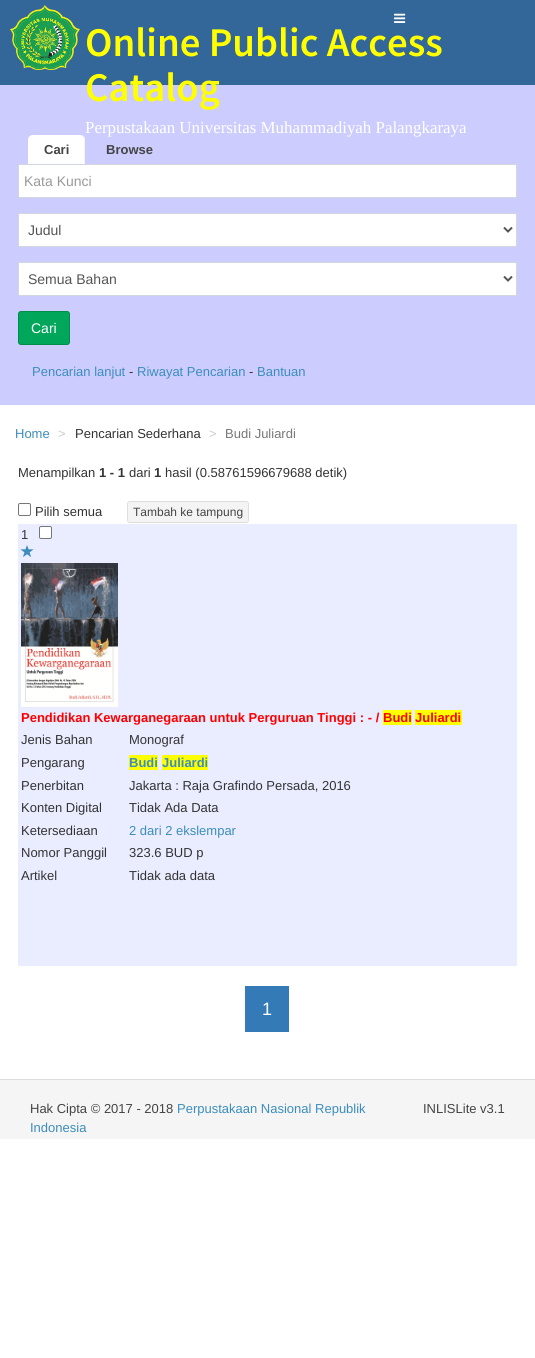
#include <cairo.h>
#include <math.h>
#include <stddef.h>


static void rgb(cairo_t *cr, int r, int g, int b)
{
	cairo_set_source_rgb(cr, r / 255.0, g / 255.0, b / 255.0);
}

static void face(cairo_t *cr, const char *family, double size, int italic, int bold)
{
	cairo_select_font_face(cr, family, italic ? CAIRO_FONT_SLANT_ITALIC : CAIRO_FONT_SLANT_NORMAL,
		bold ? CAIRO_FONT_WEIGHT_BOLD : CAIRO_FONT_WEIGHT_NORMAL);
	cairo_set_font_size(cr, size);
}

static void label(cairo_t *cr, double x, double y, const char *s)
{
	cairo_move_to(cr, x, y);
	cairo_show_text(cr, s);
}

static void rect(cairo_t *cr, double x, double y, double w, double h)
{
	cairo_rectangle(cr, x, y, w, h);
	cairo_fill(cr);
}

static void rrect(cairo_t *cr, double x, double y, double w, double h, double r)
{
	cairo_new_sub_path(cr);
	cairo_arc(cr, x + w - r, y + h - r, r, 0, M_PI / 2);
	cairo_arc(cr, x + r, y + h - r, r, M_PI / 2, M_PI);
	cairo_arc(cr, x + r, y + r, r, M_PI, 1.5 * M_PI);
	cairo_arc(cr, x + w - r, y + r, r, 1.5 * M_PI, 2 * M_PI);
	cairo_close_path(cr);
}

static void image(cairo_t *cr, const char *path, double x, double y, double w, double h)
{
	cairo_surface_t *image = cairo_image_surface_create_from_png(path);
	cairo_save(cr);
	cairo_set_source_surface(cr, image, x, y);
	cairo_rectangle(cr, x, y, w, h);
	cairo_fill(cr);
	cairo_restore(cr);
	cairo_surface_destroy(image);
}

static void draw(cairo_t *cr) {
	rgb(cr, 255, 255, 255);
	cairo_paint(cr);
	rgb(cr, 51, 102, 153);
	rect(cr, 0, 0, 535, 85);
	image(cr, "image0.png", 10, 5, 70, 65);
	image(cr, "image1.png", 394, 13, 12, 10);
	face(cr, "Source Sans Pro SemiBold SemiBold", 40.75, 0, 0);
	rgb(cr, 255, 255, 0);
	label(cr, 85, 56, "Online Public Access");
	rgb(cr, 204, 204, 255);
	rect(cr, 0, 85, 535, 320);
	rgb(cr, 255, 255, 0);
	label(cr, 85, 101, "Catalog");
	face(cr, "Liberation Serif", 16.9, 0, 0);
	rgb(cr, 255, 255, 255);
	label(cr, 85, 133, "Perpustakaan Universitas Muhammadiyah Palangkaraya");
	cairo_new_path(cr);
	cairo_move_to(cr, 33, 135);
	cairo_line_to(cr, 80, 135);
	cairo_curve_to(cr, 83, 135, 85, 137, 85, 140);
	cairo_line_to(cr, 85, 166);
	cairo_line_to(cr, 28, 166);
	cairo_line_to(cr, 28, 140);
	cairo_curve_to(cr, 28, 137, 30, 135, 33, 135);
	cairo_close_path(cr);
	cairo_fill(cr);
	rgb(cr, 244, 244, 244);
	cairo_new_path(cr);
	cairo_move_to(cr, 85, 166);
	cairo_line_to(cr, 85, 140);
	cairo_curve_to(cr, 85, 138.5, 84.5, 137, 83.5, 136.5);
	cairo_line_to(cr, 83, 137);
	cairo_curve_to(cr, 83.5, 138, 84, 139, 84, 140);
	cairo_line_to(cr, 84, 165);
	cairo_close_path(cr);
	cairo_fill(cr);
	face(cr, "Liberation Sans", 13, 0, 1);
	rgb(cr, 68, 68, 68);
	label(cr, 44, 154, "Cari");
	label(cr, 106, 154, "Browse");
	rgb(cr, 255, 255, 255);
	cairo_rectangle(cr, 18.5, 164.5, 498, 33);
	cairo_fill_preserve(cr);
	rgb(cr, 210, 214, 222);
	cairo_set_line_width(cr, 1);
	cairo_stroke(cr);
	face(cr, "Liberation Sans", 14, 0, 0);
	rgb(cr, 153, 153, 153);
	label(cr, 24, 186, "Kata Kunci");
	rgb(cr, 255, 255, 255);
	cairo_rectangle(cr, 18.5, 213.5, 498, 33);
	cairo_fill_preserve(cr);
	rgb(cr, 210, 214, 222);
	cairo_stroke(cr);
	cairo_new_path(cr);
	cairo_move_to(cr, 504, 227.5);
	cairo_line_to(cr, 508, 231.5);
	cairo_line_to(cr, 512, 227.5);
	rgb(cr, 85, 85, 85);
	cairo_set_line_width(cr, 2);
	cairo_stroke(cr);
	label(cr, 28, 235, "Judul");
	rgb(cr, 255, 255, 255);
	cairo_rectangle(cr, 18.5, 262.5, 498, 33);
	cairo_fill_preserve(cr);
	rgb(cr, 210, 214, 222);
	cairo_set_line_width(cr, 1);
	cairo_stroke(cr);
	cairo_new_path(cr);
	cairo_move_to(cr, 504, 276.5);
	cairo_line_to(cr, 508, 280.5);
	cairo_line_to(cr, 512, 276.5);
	rgb(cr, 85, 85, 85);
	cairo_set_line_width(cr, 2);
	cairo_stroke(cr);
	label(cr, 28, 284, "Semua Bahan");
	rgb(cr, 0, 166, 90);
	rrect(cr, 18.5, 311.5, 51, 33, 2.5);
	cairo_fill_preserve(cr);
	rgb(cr, 0, 141, 76);
	cairo_set_line_width(cr, 1);
	cairo_stroke(cr);
	rgb(cr, 255, 255, 255);
	label(cr, 31, 333, "Cari");
	face(cr, "Liberation Sans", 13, 0, 0);
	rgb(cr, 60, 141, 188);
	label(cr, 32, 376, "Pencarian lanjut");
	rgb(cr, 51, 51, 51);
	label(cr, 129, 376, "-");
	rgb(cr, 60, 141, 188);
	label(cr, 137, 376, "Riwayat Pencarian");
	rgb(cr, 51, 51, 51);
	label(cr, 249, 376, "-");
	rgb(cr, 60, 141, 188);
	label(cr, 257, 376, "Bantuan");
	label(cr, 15, 438, "Home");
	rgb(cr, 204, 204, 204);
	label(cr, 58, 438, ">");
	rgb(cr, 51, 51, 51);
	label(cr, 75, 438, "Pencarian Sederhana");
	rgb(cr, 204, 204, 204);
	label(cr, 209, 438, ">");
	rgb(cr, 119, 119, 119);
	label(cr, 225, 438, "Budi Juliardi");
	rgb(cr, 51, 51, 51);
	label(cr, 18, 477, "Menampilkan");
	face(cr, "Liberation Sans", 13, 0, 1);
	label(cr, 99, 477, "1 - 1");
	face(cr, "Liberation Sans", 13, 0, 0);
	label(cr, 129, 477, "dari");
	face(cr, "Liberation Sans", 13, 0, 1);
	label(cr, 154, 477, "1");
	face(cr, "Liberation Sans", 13, 0, 0);
	label(cr, 165, 477, "hasil (0.58761596679688 detik)");
	rrect(cr, 18.5, 503.5, 12, 12, 1.5);
	rgb(cr, 118, 118, 118);
	cairo_stroke(cr);
	rgb(cr, 51, 51, 51);
	label(cr, 35, 516, "Pilih semua");
	rgb(cr, 244, 244, 244);
	rrect(cr, 127.5, 501.5, 121, 21, 2.5);
	cairo_fill_preserve(cr);
	rgb(cr, 221, 221, 221);
	cairo_stroke(cr);
	face(cr, "Liberation Sans", 12, 0, 0);
	rgb(cr, 68, 68, 68);
	label(cr, 133, 516, "Tambah ke tampung");
	rgb(cr, 234, 237, 255);
	rect(cr, 18, 524, 499, 442);
	face(cr, "Liberation Sans", 13, 0, 0);
	rgb(cr, 51, 51, 51);
	label(cr, 21, 539, "1");
	rgb(cr, 255, 255, 255);
	rrect(cr, 39.5, 526.5, 12, 12, 1.5);
	cairo_fill_preserve(cr);
	rgb(cr, 118, 118, 118);
	cairo_stroke(cr);
	image(cr, "image2.png", 20, 545, 14, 12);
	image(cr, "image3.png", 21, 563, 97, 144);
	face(cr, "Liberation Sans", 13, 0, 1);
	rgb(cr, 255, 0, 0);
	label(cr, 21, 722, "Pendidikan Kewarganegaraan untuk Perguruan Tinggi : - /");
	rgb(cr, 255, 255, 0);
	rect(cr, 383, 710, 29, 15);
	rgb(cr, 255, 0, 0);
	label(cr, 383, 722, "Budi");
	rgb(cr, 255, 255, 0);
	rect(cr, 415, 710, 47, 15);
	rgb(cr, 255, 0, 0);
	label(cr, 415, 722, "Juliardi");
	face(cr, "Liberation Sans", 13, 0, 0);
	rgb(cr, 51, 51, 51);
	label(cr, 21, 744, "Jenis Bahan");
	label(cr, 129, 744, "Monograf");
	label(cr, 21, 767, "Pengarang");
	rgb(cr, 255, 255, 0);
	rect(cr, 129, 755, 29, 15);
	face(cr, "Liberation Sans", 13, 0, 1);
	rgb(cr, 60, 141, 188);
	label(cr, 129, 767, "Budi");
	rgb(cr, 255, 255, 0);
	rect(cr, 162, 755, 46, 15);
	rgb(cr, 60, 141, 188);
	label(cr, 162, 767, "Juliardi");
	face(cr, "Liberation Sans", 13, 0, 0);
	rgb(cr, 51, 51, 51);
	label(cr, 21, 790, "Penerbitan");
	label(cr, 129, 790, "Jakarta : Raja Grafindo Persada, 2016");
	label(cr, 21, 812, "Konten Digital");
	label(cr, 129, 812, "Tidak Ada Data");
	label(cr, 21, 835, "Ketersediaan");
	rgb(cr, 60, 141, 188);
	label(cr, 129, 835, "2 dari 2 ekslempar");
	rgb(cr, 51, 51, 51);
	label(cr, 21, 857, "Nomor Panggil");
	label(cr, 129, 857, "323.6 BUD p");
	label(cr, 21, 880, "Artikel");
	label(cr, 129, 880, "Tidak ada data");
	rgb(cr, 51, 122, 183);
	rect(cr, 245, 986, 44, 46);
	face(cr, "Liberation Sans", 18, 0, 0);
	rgb(cr, 255, 255, 255);
	label(cr, 262, 1015, "1");
	rgb(cr, 245, 245, 245);
	rect(cr, 0, 1080, 535, 59);
	rgb(cr, 221, 221, 221);
	rect(cr, 0, 1079, 535, 1);
	face(cr, "Liberation Sans", 13, 0, 0);
	rgb(cr, 68, 68, 68);
	label(cr, 30, 1113, "Hak Cipta © 2017 - 2018");
	rgb(cr, 60, 141, 188);
	label(cr, 177, 1113, "Perpustakaan Nasional Republik");
	rgb(cr, 68, 68, 68);
	label(cr, 423, 1113, "INLISLite v3.1");
	rgb(cr, 60, 141, 188);
	label(cr, 30, 1132, "Indonesia");
}

int main(void) {
	cairo_surface_t *surface = cairo_image_surface_create(CAIRO_FORMAT_RGB24, 535, 1358);
	cairo_t *cr = cairo_create(surface);
	cairo_font_options_t *options = cairo_font_options_create();
	cairo_font_options_set_hint_metrics(options, CAIRO_HINT_METRICS_OFF);
	cairo_font_options_set_hint_style(options, CAIRO_HINT_STYLE_NONE);
	cairo_set_font_options(cr, options);
	cairo_set_miter_limit(cr, 4);
	draw(cr);
	cairo_surface_write_to_png(surface, "render.png");
	cairo_font_options_destroy(options);
	cairo_destroy(cr);
	cairo_surface_destroy(surface);
	return 0;
}
